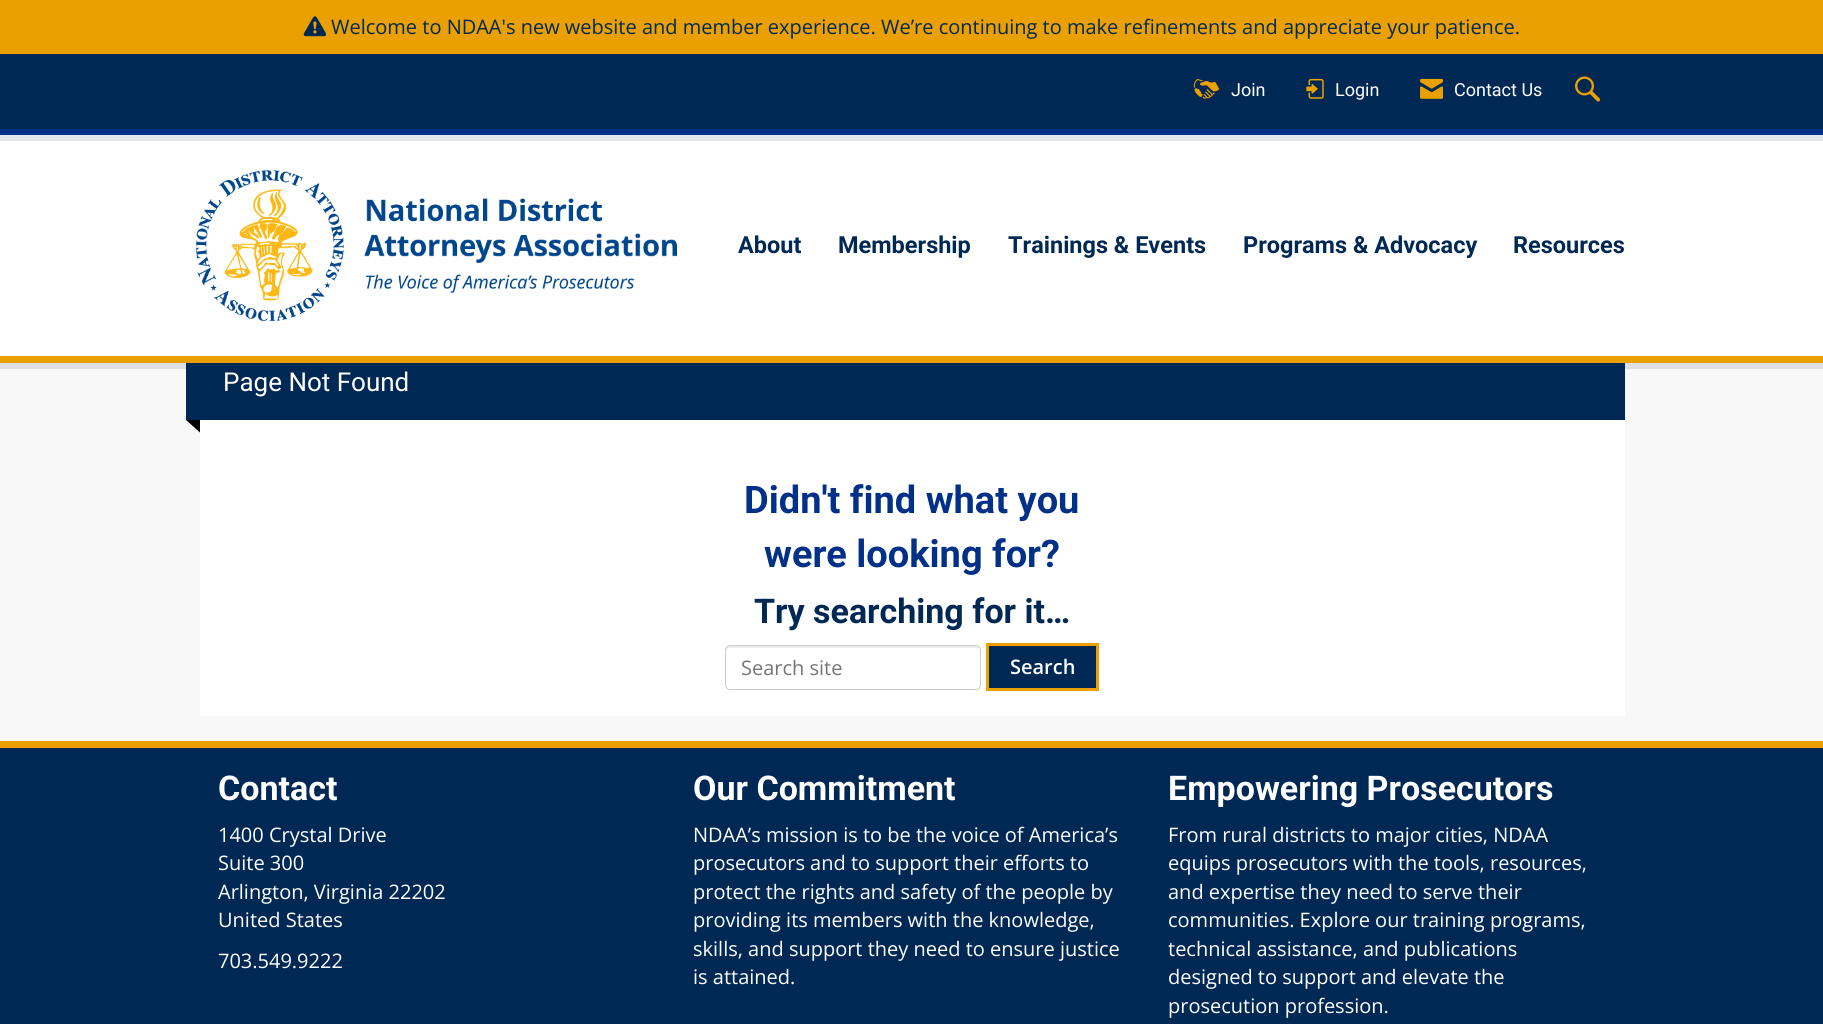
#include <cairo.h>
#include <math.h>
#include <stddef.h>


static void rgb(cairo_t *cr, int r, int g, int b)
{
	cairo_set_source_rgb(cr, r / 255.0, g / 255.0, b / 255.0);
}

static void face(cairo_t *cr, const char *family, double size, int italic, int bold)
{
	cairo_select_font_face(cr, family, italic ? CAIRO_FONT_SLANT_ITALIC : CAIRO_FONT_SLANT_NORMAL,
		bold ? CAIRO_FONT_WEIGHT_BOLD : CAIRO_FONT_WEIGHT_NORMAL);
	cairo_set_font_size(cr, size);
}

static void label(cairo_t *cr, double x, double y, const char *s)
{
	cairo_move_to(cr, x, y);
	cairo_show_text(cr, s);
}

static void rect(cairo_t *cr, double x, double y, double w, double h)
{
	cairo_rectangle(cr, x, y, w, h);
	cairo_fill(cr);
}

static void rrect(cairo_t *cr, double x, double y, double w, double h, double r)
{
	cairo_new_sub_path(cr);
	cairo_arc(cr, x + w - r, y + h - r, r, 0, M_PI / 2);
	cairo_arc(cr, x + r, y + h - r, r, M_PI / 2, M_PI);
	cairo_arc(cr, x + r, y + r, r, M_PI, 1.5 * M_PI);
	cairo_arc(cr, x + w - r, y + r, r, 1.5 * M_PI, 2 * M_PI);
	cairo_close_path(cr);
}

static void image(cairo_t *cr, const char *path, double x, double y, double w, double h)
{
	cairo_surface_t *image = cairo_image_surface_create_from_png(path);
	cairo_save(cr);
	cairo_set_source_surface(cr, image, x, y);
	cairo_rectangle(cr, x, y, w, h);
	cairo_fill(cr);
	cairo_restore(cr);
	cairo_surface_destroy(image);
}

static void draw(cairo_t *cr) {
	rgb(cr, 248, 248, 248);
	cairo_paint(cr);
	rgb(cr, 234, 160, 0);
	rect(cr, 0, 0, 1823, 54);
	image(cr, "image0.png", 303, 16, 24, 21);
	face(cr, "Open Sans", 20, 0, 0);
	rgb(cr, 0, 40, 85);
	label(cr, 331, 34, "Welcome to NDAA's new website and member experience. We’re continuing to make refinements and appreciate your patience.");
	rect(cr, 186, 363, 1439, 57);
	cairo_set_source_rgba(cr, 0, 0.157, 0.333, 0.11);
	cairo_new_path(cr);
	cairo_move_to(cr, 0, 362);
	cairo_line_to(cr, 0, 369);
	cairo_line_to(cr, 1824, 369);
	cairo_line_to(cr, 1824, 60);
	cairo_line_to(cr, 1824, 362);
	cairo_close_path(cr);
	cairo_fill(cr);
	rgb(cr, 255, 255, 255);
	rect(cr, 0, 141, 1823, 215);
	rgb(cr, 234, 160, 0);
	rect(cr, 0, 356, 1823, 7);
	rgb(cr, 227, 231, 236);
	cairo_new_path(cr);
	cairo_move_to(cr, 0, 135);
	cairo_line_to(cr, 0, 141);
	cairo_line_to(cr, 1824, 141);
	cairo_line_to(cr, 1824, 60);
	cairo_line_to(cr, 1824, 135);
	cairo_close_path(cr);
	cairo_fill(cr);
	rgb(cr, 0, 40, 85);
	rect(cr, 0, 54, 1823, 75);
	rgb(cr, 0, 48, 135);
	rect(cr, 0, 129, 1823, 6);
	image(cr, "image1.png", 1193, 79, 27, 20);
	face(cr, "Roboto", 18, 0, 0);
	rgb(cr, 255, 255, 255);
	label(cr, 1231, 96, "Join");
	image(cr, "image2.png", 1306, 78, 18, 21);
	label(cr, 1335, 96, "Login");
	image(cr, "image3.png", 1420, 78, 24, 21);
	label(cr, 1454, 96, "Contact Us");
	image(cr, "image4.png", 1575, 76, 26, 26);
	image(cr, "image5.png", 196, 170, 481, 152);
	face(cr, "Roboto", 23.5, 0, 1);
	rgb(cr, 0, 40, 85);
	label(cr, 738, 253, "About");
	label(cr, 838, 253, "Membership");
	label(cr, 1008, 253, "Trainings & Events");
	label(cr, 1243, 253, "Programs & Advocacy");
	label(cr, 1513, 253, "Resources");
	face(cr, "Roboto", 26, 0, 0);
	rgb(cr, 255, 255, 255);
	label(cr, 223, 391, "Page Not Found");
	rgb(cr, 0, 0, 0);
	cairo_new_path(cr);
	cairo_move_to(cr, 186, 420);
	cairo_line_to(cr, 200, 420);
	cairo_line_to(cr, 200, 432.5);
	cairo_close_path(cr);
	cairo_fill(cr);
	rgb(cr, 255, 255, 255);
	rect(cr, 200, 420, 1425, 296);
	face(cr, "Roboto", 38, 0, 1);
	rgb(cr, 0, 48, 135);
	label(cr, 744, 513, "Didn't find what you");
	label(cr, 764, 567, "were looking for?");
	face(cr, "Roboto", 34, 0, 1);
	rgb(cr, 0, 40, 85);
	label(cr, 754, 623, "Try searching for it…");
	rgb(cr, 236, 236, 236);
	cairo_new_path(cr);
	cairo_move_to(cr, 730, 648);
	cairo_line_to(cr, 976, 648);
	cairo_curve_to(cr, 978, 648, 980, 649, 980, 651);
	cairo_line_to(cr, 980, 650);
	cairo_curve_to(cr, 980, 648, 978, 646, 976, 646);
	cairo_line_to(cr, 730, 646);
	cairo_curve_to(cr, 728, 646, 726, 648, 726, 650);
	cairo_line_to(cr, 726, 651);
	cairo_curve_to(cr, 726, 649, 728, 648, 730, 648);
	cairo_close_path(cr);
	cairo_fill(cr);
	rrect(cr, 725.5, 645.5, 255, 44, 4.5);
	rgb(cr, 204, 204, 204);
	cairo_set_line_width(cr, 1);
	cairo_stroke(cr);
	face(cr, "Open Sans", 20, 0, 0);
	rgb(cr, 117, 117, 117);
	label(cr, 741, 675, "Search site");
	rgb(cr, 0, 40, 85);
	cairo_rectangle(cr, 987.5, 644.5, 110, 45);
	cairo_fill_preserve(cr);
	rgb(cr, 234, 160, 0);
	cairo_set_line_width(cr, 3);
	cairo_stroke(cr);
	face(cr, "Open Sans SemiBold", 20, 0, 0);
	rgb(cr, 255, 255, 255);
	label(cr, 1010, 674, "Search");
	rgb(cr, 234, 160, 0);
	rect(cr, 0, 741, 1823, 7);
	rgb(cr, 0, 40, 85);
	rect(cr, 0, 748, 1823, 276);
	face(cr, "Roboto", 34, 0, 1);
	rgb(cr, 255, 255, 255);
	label(cr, 218, 800, "Contact");
	face(cr, "Open Sans", 20, 0, 0);
	label(cr, 218, 842, "1400 Crystal Drive");
	label(cr, 218, 870, "Suite 300");
	label(cr, 218, 899, "Arlington, Virginia 22202");
	label(cr, 218, 927, "United States");
	label(cr, 218, 968, "703.549.9222");
	face(cr, "Roboto", 34, 0, 1);
	label(cr, 693, 800, "Our Commitment");
	face(cr, "Open Sans", 20, 0, 0);
	label(cr, 693, 842, "NDAA’s mission is to be the voice of America’s");
	label(cr, 693, 870, "prosecutors and to support their efforts to");
	label(cr, 693, 899, "protect the rights and safety of the people by");
	label(cr, 693, 927, "providing its members with the knowledge,");
	label(cr, 693, 956, "skills, and support they need to ensure justice");
	label(cr, 693, 984, "is attained.");
	face(cr, "Roboto", 34, 0, 1);
	label(cr, 1168, 800, "Empowering Prosecutors");
	face(cr, "Open Sans", 20, 0, 0);
	label(cr, 1168, 842, "From rural districts to major cities, NDAA");
	label(cr, 1168, 870, "equips prosecutors with the tools, resources,");
	label(cr, 1168, 899, "and expertise they need to serve their");
	label(cr, 1168, 927, "communities. Explore our training programs,");
	label(cr, 1168, 956, "technical assistance, and publications");
	label(cr, 1168, 984, "designed to support and elevate the");
	label(cr, 1168, 1013, "prosecution profession.");
}

int main(void) {
	cairo_surface_t *surface = cairo_image_surface_create(CAIRO_FORMAT_RGB24, 1823, 1024);
	cairo_t *cr = cairo_create(surface);
	cairo_font_options_t *options = cairo_font_options_create();
	cairo_font_options_set_hint_metrics(options, CAIRO_HINT_METRICS_OFF);
	cairo_font_options_set_hint_style(options, CAIRO_HINT_STYLE_NONE);
	cairo_set_font_options(cr, options);
	cairo_set_miter_limit(cr, 4);
	draw(cr);
	cairo_surface_write_to_png(surface, "render.png");
	cairo_font_options_destroy(options);
	cairo_destroy(cr);
	cairo_surface_destroy(surface);
	return 0;
}
